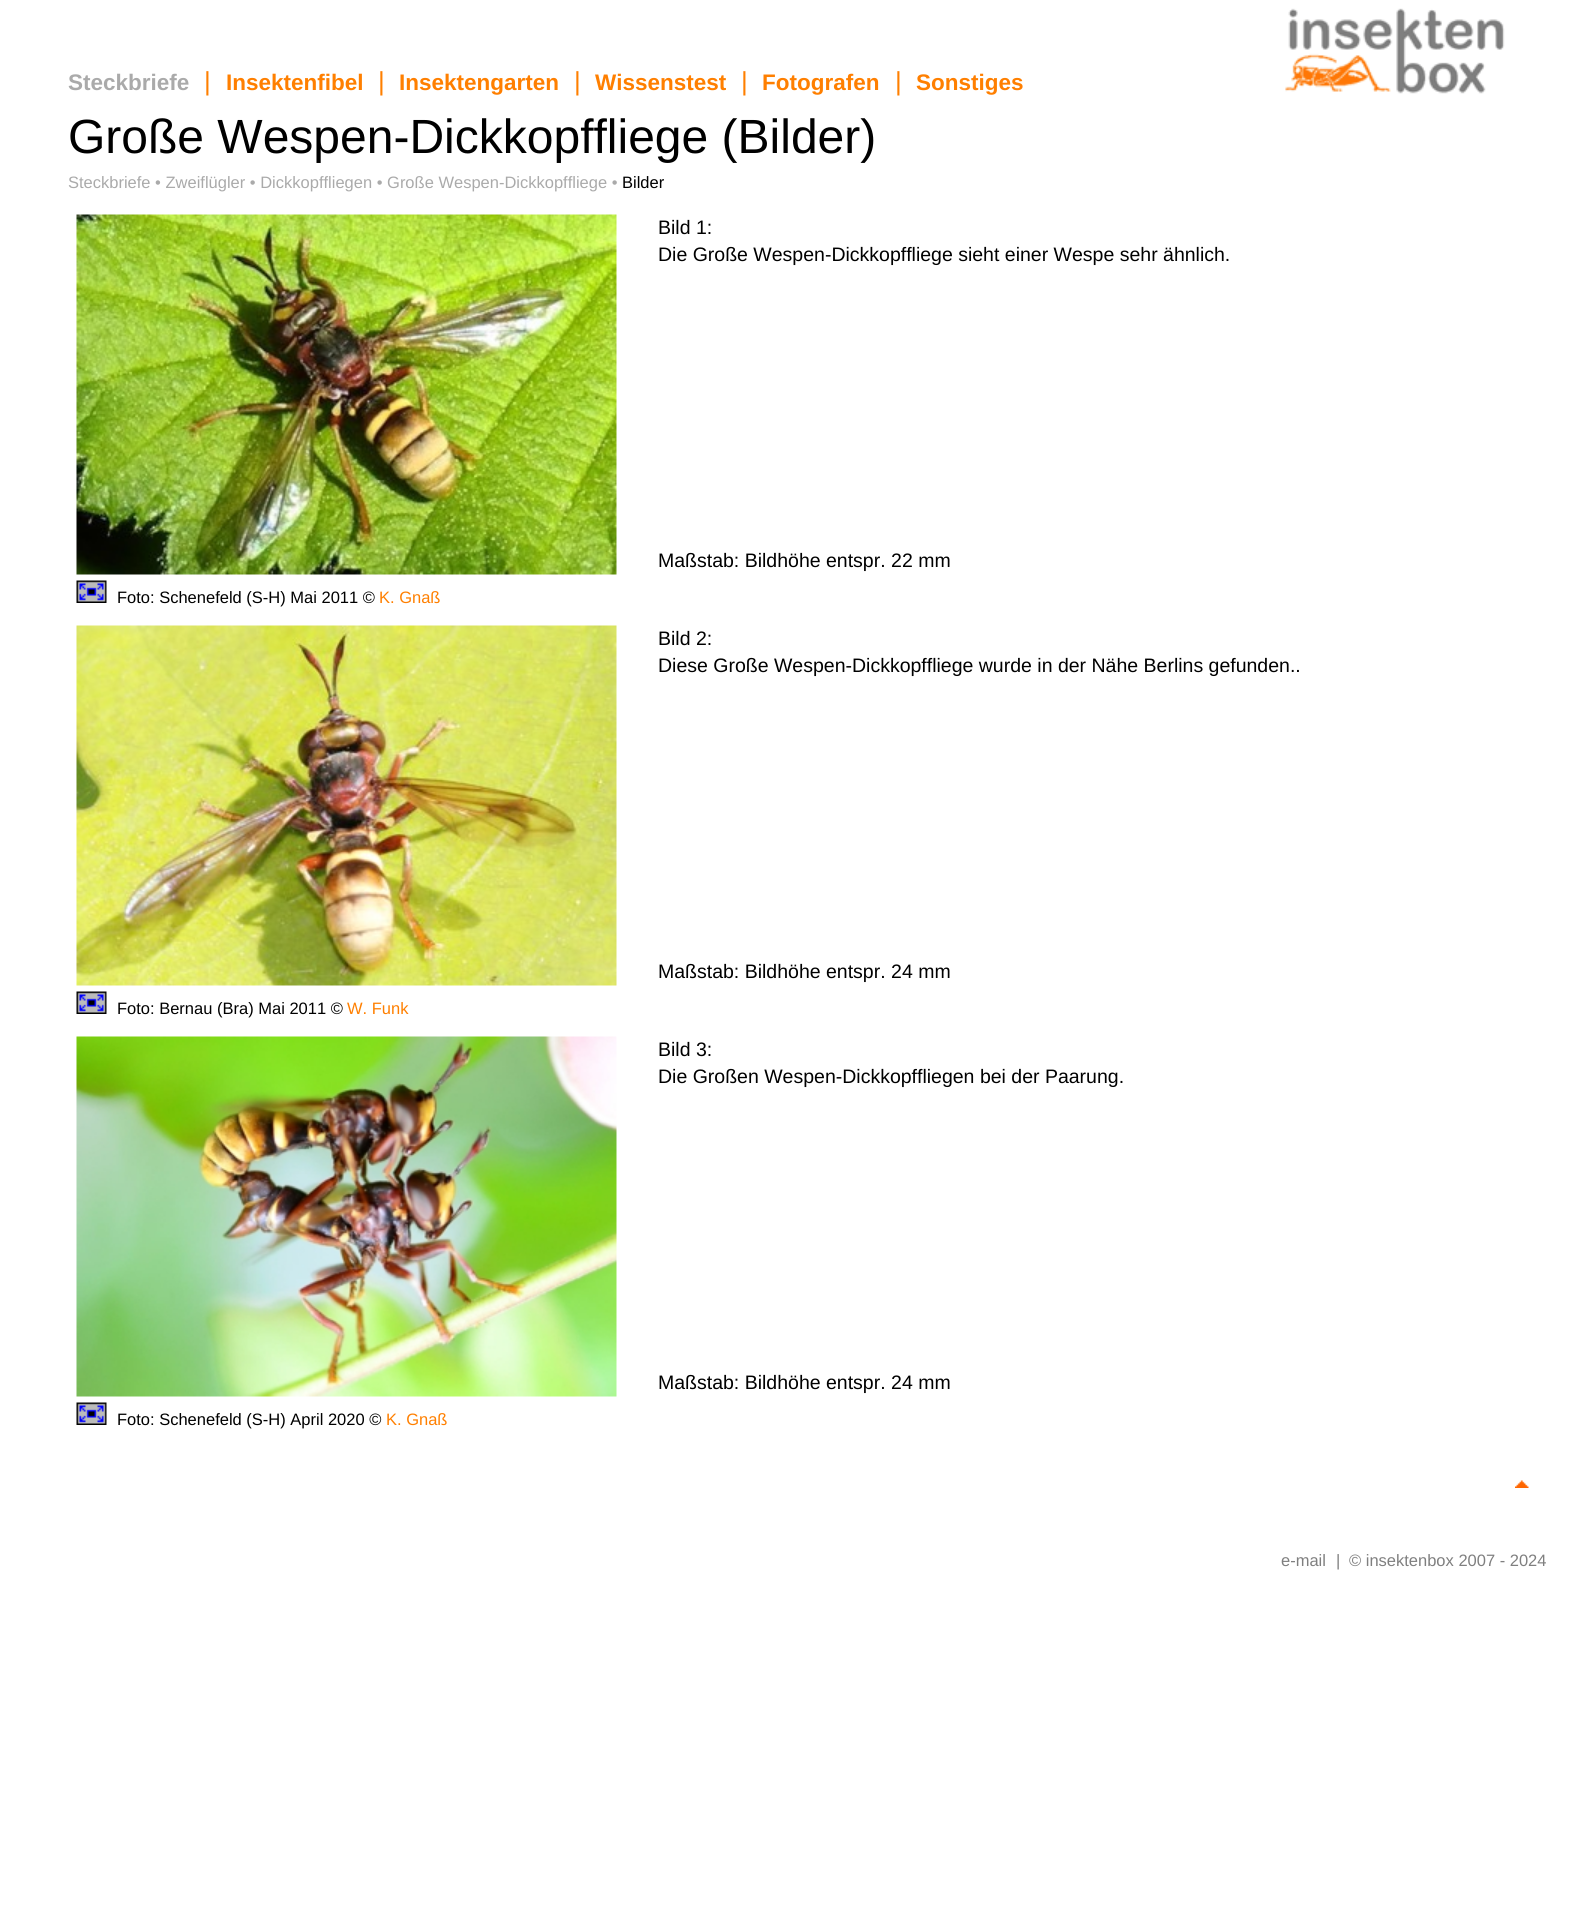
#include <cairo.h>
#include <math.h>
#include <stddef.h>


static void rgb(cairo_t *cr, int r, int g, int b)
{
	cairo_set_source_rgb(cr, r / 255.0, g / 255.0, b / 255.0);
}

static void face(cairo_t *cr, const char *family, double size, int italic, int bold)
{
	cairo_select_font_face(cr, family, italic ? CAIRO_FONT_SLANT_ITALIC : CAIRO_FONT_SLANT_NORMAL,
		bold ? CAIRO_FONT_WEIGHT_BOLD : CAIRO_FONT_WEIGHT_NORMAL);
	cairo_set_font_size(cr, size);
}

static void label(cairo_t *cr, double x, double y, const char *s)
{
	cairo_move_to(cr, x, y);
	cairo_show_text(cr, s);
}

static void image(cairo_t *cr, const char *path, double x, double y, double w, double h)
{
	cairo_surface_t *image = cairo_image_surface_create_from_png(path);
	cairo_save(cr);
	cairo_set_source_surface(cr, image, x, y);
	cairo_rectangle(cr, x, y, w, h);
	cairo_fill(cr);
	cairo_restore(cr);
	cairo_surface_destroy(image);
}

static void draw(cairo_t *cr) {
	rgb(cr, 255, 255, 255);
	cairo_paint(cr);
	face(cr, "Liberation Sans", 22.5, 0, 1);
	rgb(cr, 170, 170, 170);
	label(cr, 68, 90, "Steckbriefe");
	face(cr, "Liberation Sans", 26, 0, 0);
	rgb(cr, 255, 127, 0);
	label(cr, 204, 90, "|");
	face(cr, "Liberation Sans", 22.5, 0, 1);
	label(cr, 226, 90, "Insektenfibel");
	face(cr, "Liberation Sans", 26, 0, 0);
	label(cr, 378, 90, "|");
	face(cr, "Liberation Sans", 22.5, 0, 1);
	label(cr, 399, 90, "Insektengarten");
	face(cr, "Liberation Sans", 26, 0, 0);
	label(cr, 574, 90, "|");
	face(cr, "Liberation Sans", 22.5, 0, 1);
	label(cr, 595, 90, "Wissenstest");
	face(cr, "Liberation Sans", 26, 0, 0);
	label(cr, 741, 90, "|");
	face(cr, "Liberation Sans", 22.5, 0, 1);
	label(cr, 762, 90, "Fotografen");
	face(cr, "Liberation Sans", 26, 0, 0);
	label(cr, 895, 90, "|");
	face(cr, "Liberation Sans", 22.5, 0, 1);
	label(cr, 916, 90, "Sonstiges");
	image(cr, "image0.png", 1285, 8, 220, 86);
	face(cr, "Liberation Sans", 48, 0, 0);
	rgb(cr, 0, 0, 0);
	label(cr, 68, 153, "Große Wespen-Dickkopffliege (Bilder)");
	face(cr, "Liberation Sans", 16.5, 0, 0);
	rgb(cr, 170, 170, 170);
	label(cr, 68, 188, "Steckbriefe • Zweiflügler • Dickkopffliegen • Große Wespen-Dickkopffliege •");
	rgb(cr, 0, 0, 0);
	label(cr, 622, 188, "Bilder");
	image(cr, "image1.png", 76, 214, 541, 361);
	face(cr, "Liberation Sans", 19.5, 0, 0);
	label(cr, 658, 234, "Bild 1:");
	label(cr, 658, 261, "Die Große Wespen-Dickkopffliege sieht einer Wespe sehr ähnlich.");
	label(cr, 658, 567, "Maßstab: Bildhöhe entspr. 22 mm");
	image(cr, "image2.png", 76, 580, 31, 23);
	face(cr, "Liberation Sans", 16.5, 0, 0);
	label(cr, 117, 603, "Foto: Schenefeld (S-H) Mai 2011 ©");
	rgb(cr, 255, 127, 0);
	label(cr, 379, 603, "K. Gnaß");
	image(cr, "image3.png", 76, 625, 541, 361);
	face(cr, "Liberation Sans", 19.5, 0, 0);
	rgb(cr, 0, 0, 0);
	label(cr, 658, 645, "Bild 2:");
	label(cr, 658, 672, "Diese Große Wespen-Dickkopffliege wurde in der Nähe Berlins gefunden..");
	label(cr, 658, 978, "Maßstab: Bildhöhe entspr. 24 mm");
	image(cr, "image2.png", 76, 991, 31, 23);
	face(cr, "Liberation Sans", 16.5, 0, 0);
	label(cr, 117, 1014, "Foto: Bernau (Bra) Mai 2011 ©");
	rgb(cr, 255, 127, 0);
	label(cr, 347, 1014, "W. Funk");
	image(cr, "image4.png", 76, 1036, 541, 361);
	face(cr, "Liberation Sans", 19.5, 0, 0);
	rgb(cr, 0, 0, 0);
	label(cr, 658, 1056, "Bild 3:");
	label(cr, 658, 1083, "Die Großen Wespen-Dickkopffliegen bei der Paarung.");
	label(cr, 658, 1389, "Maßstab: Bildhöhe entspr. 24 mm");
	image(cr, "image2.png", 76, 1402, 31, 23);
	face(cr, "Liberation Sans", 16.5, 0, 0);
	label(cr, 117, 1425, "Foto: Schenefeld (S-H) April 2020 ©");
	rgb(cr, 255, 127, 0);
	label(cr, 386, 1425, "K. Gnaß");
	image(cr, "image5.png", 1515, 1480, 14, 8);
	rgb(cr, 127, 127, 127);
	label(cr, 1281, 1566, "e-mail");
	label(cr, 1336, 1566, "|");
	label(cr, 1349, 1566, "© insektenbox 2007 - 2024");
}

int main(void) {
	cairo_surface_t *surface = cairo_image_surface_create(CAIRO_FORMAT_RGB24, 1576, 1920);
	cairo_t *cr = cairo_create(surface);
	cairo_font_options_t *options = cairo_font_options_create();
	cairo_font_options_set_hint_metrics(options, CAIRO_HINT_METRICS_OFF);
	cairo_font_options_set_hint_style(options, CAIRO_HINT_STYLE_NONE);
	cairo_set_font_options(cr, options);
	cairo_set_miter_limit(cr, 4);
	draw(cr);
	cairo_surface_write_to_png(surface, "render.png");
	cairo_font_options_destroy(options);
	cairo_destroy(cr);
	cairo_surface_destroy(surface);
	return 0;
}
